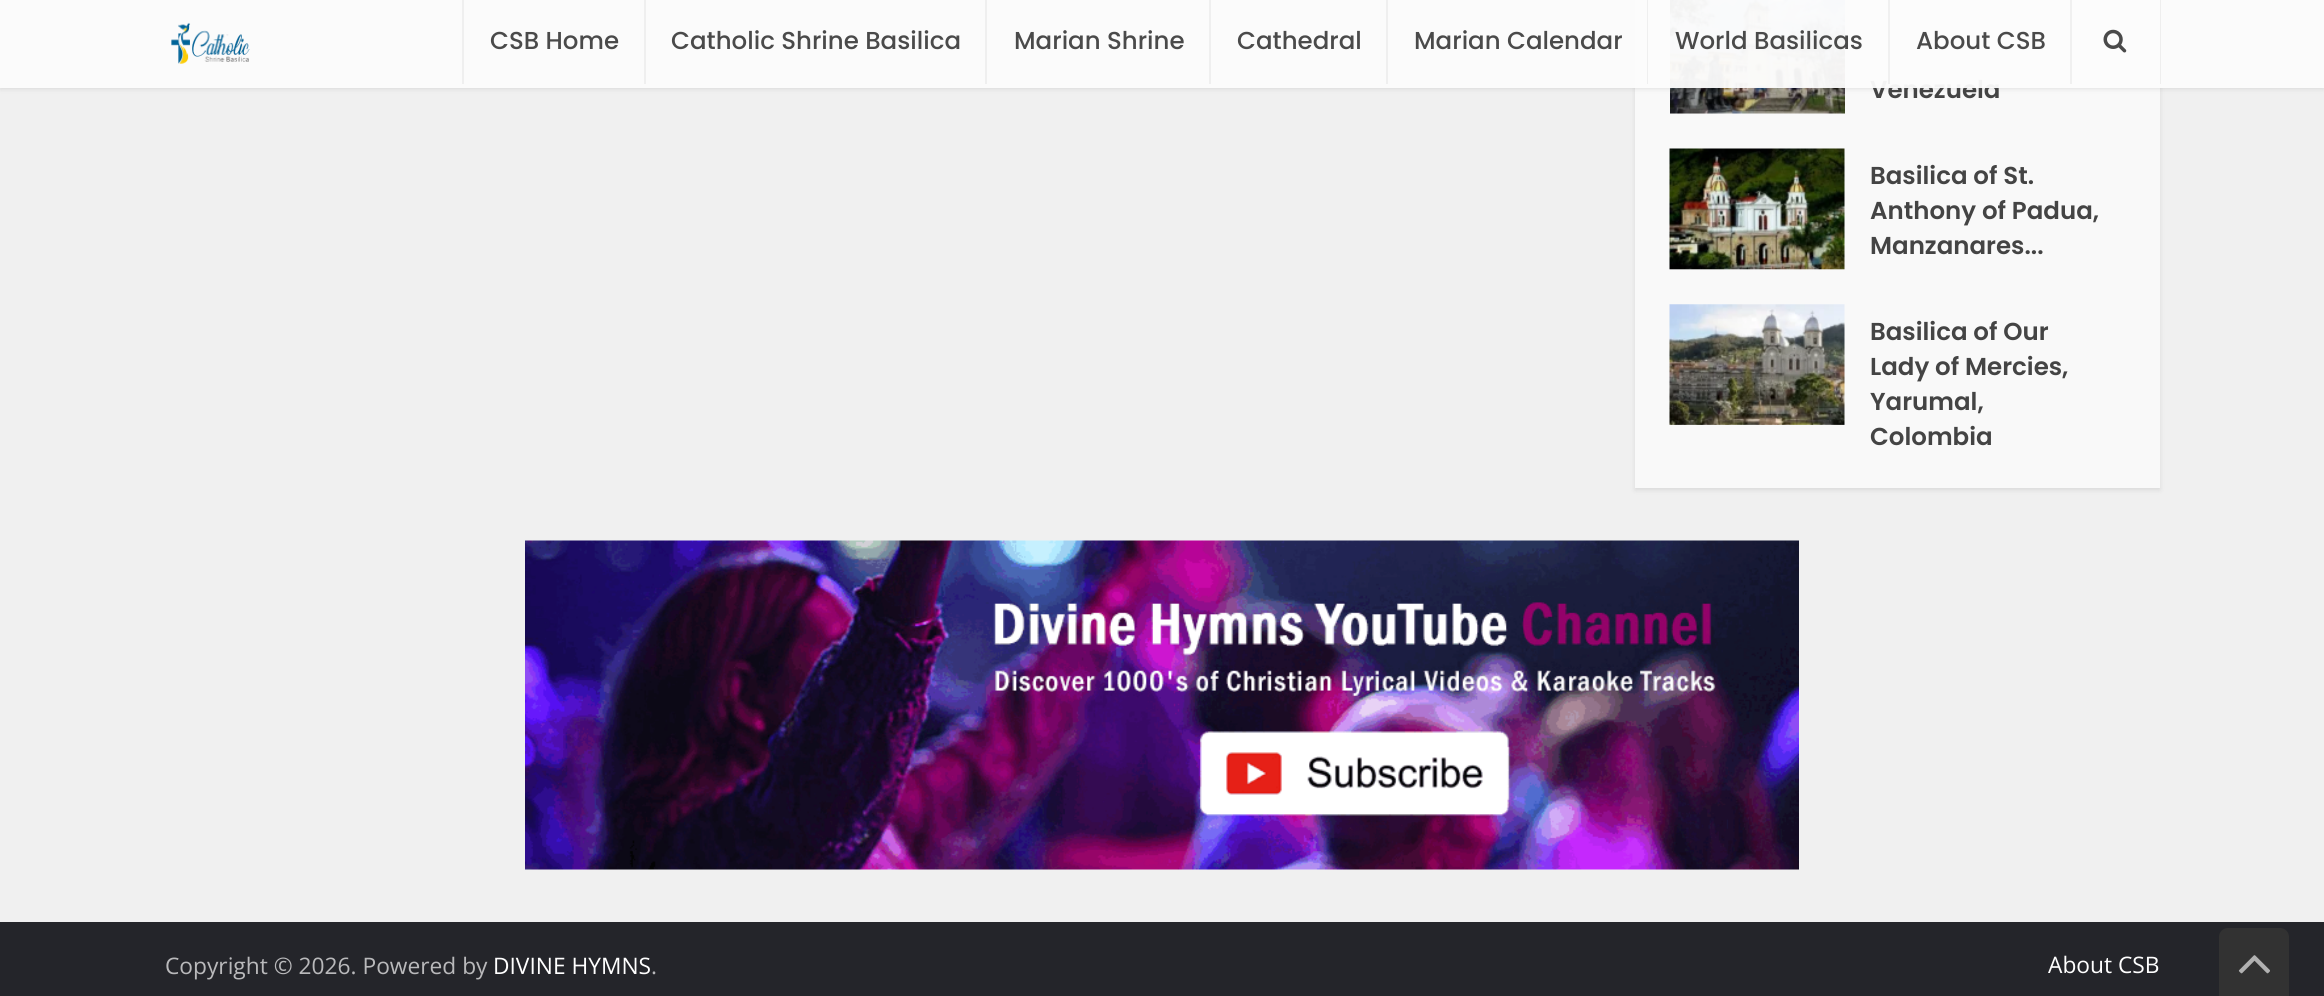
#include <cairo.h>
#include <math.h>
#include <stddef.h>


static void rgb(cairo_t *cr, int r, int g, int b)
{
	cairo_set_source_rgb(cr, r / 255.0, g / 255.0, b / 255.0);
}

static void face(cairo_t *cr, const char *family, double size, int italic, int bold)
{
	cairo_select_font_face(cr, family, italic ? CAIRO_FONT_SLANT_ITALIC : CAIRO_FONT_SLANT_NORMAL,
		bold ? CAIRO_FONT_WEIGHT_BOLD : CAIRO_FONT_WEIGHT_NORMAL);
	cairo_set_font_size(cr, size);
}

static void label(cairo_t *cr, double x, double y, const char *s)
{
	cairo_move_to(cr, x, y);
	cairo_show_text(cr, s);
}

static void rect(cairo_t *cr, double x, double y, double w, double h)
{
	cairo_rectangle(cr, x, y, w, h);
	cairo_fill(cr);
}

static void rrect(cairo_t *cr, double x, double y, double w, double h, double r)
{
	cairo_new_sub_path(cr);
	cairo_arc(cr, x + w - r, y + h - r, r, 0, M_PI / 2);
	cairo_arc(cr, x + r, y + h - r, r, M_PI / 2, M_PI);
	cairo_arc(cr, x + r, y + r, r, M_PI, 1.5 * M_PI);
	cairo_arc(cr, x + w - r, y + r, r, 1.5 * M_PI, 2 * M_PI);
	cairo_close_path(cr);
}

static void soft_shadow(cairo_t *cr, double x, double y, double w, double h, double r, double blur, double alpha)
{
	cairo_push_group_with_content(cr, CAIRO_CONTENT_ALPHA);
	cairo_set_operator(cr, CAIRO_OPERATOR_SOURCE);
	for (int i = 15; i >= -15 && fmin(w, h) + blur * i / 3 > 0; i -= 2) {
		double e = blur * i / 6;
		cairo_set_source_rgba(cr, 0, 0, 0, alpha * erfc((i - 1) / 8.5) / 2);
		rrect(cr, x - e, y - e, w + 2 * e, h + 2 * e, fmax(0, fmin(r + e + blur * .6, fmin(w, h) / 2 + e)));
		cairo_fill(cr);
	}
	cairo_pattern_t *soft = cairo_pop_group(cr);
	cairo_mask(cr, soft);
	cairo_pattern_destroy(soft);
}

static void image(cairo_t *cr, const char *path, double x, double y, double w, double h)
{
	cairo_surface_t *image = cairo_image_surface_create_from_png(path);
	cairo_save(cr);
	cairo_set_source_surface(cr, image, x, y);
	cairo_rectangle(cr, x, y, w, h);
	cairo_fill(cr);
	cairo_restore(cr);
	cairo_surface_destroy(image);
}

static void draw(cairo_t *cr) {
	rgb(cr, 240, 240, 240);
	cairo_paint(cr);
	rgb(cr, 0, 0, 0);
	soft_shadow(cr, 1635, -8, 525, 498, 0, 2.5, 0.1);
	rgb(cr, 249, 249, 249);
	rect(cr, 1635, 0, 525, 488);
	image(cr, "image2.png", 1670, 0, 175, 114);
	cairo_save(cr);
	cairo_set_fill_rule(cr, CAIRO_FILL_RULE_EVEN_ODD);
	cairo_new_path(cr);
	cairo_move_to(cr, 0, 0);
	cairo_line_to(cr, 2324, 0);
	cairo_line_to(cr, 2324, 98);
	cairo_line_to(cr, 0, 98);
	cairo_close_path(cr);
	cairo_move_to(cr, 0, 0);
	cairo_line_to(cr, 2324, 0);
	cairo_line_to(cr, 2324, 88);
	cairo_line_to(cr, 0, 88);
	cairo_close_path(cr);
	cairo_clip(cr);
	rgb(cr, 0, 0, 0);
	soft_shadow(cr, 0, 2, 2324, 87, 0, 2.5, 0.1);
	cairo_restore(cr);
	face(cr, "Poppins SemiBold", 24.5, 0, 0);
	rgb(cr, 68, 68, 68);
	label(cr, 1870, 98, "Venezuela");
	cairo_set_source_rgba(cr, 0.988, 0.988, 0.988, 0.95);
	rect(cr, 0, 0, 2324, 88);
	image(cr, "image0.png", 171, 22, 79, 42);
	rgb(cr, 239, 239, 239);
	rect(cr, 462, 0, 2, 84);
	face(cr, "Poppins Medium", 24.5, 0, 0);
	rgb(cr, 74, 74, 74);
	label(cr, 490, 49, "CSB Home");
	rgb(cr, 239, 239, 239);
	rect(cr, 644, 0, 2, 84);
	rgb(cr, 74, 74, 74);
	label(cr, 671, 49, "Catholic Shrine Basilica");
	rgb(cr, 239, 239, 239);
	rect(cr, 985, 0, 2, 84);
	rgb(cr, 74, 74, 74);
	label(cr, 1014, 49, "Marian Shrine");
	rgb(cr, 239, 239, 239);
	rect(cr, 1209, 0, 2, 84);
	rgb(cr, 74, 74, 74);
	label(cr, 1237, 49, "Cathedral");
	rgb(cr, 239, 239, 239);
	rect(cr, 1386, 0, 2, 84);
	rgb(cr, 74, 74, 74);
	label(cr, 1414, 49, "Marian Calendar");
	rgb(cr, 239, 239, 239);
	rect(cr, 1647, 0, 1, 84);
	rgb(cr, 74, 74, 74);
	label(cr, 1675, 49, "World Basilicas");
	cairo_set_source_rgba(cr, 0, 0, 0, 0.05);
	rect(cr, 1888, 0, 2, 84);
	rgb(cr, 74, 74, 74);
	label(cr, 1916, 49, "About CSB");
	rgb(cr, 238, 238, 238);
	rect(cr, 2160, 0, 1, 84);
	cairo_set_source_rgba(cr, 0, 0, 0, 0.05);
	rect(cr, 2070, 0, 2, 84);
	image(cr, "image1.png", 2103, 29, 24, 24);
	image(cr, "image3.png", 1669, 148, 176, 122);
	face(cr, "Poppins SemiBold", 24.5, 0, 0);
	rgb(cr, 68, 68, 68);
	label(cr, 1870, 184, "Basilica of St.");
	label(cr, 1870, 219, "Anthony of Padua,");
	label(cr, 1870, 254, "Manzanares...");
	image(cr, "image4.png", 1669, 304, 176, 121);
	label(cr, 1870, 340, "Basilica of Our");
	label(cr, 1870, 375, "Lady of Mercies,");
	label(cr, 1870, 410, "Yarumal,");
	label(cr, 1870, 445, "Colombia");
	image(cr, "image5.png", 525, 540, 1274, 330);
	rgb(cr, 36, 37, 42);
	rect(cr, 0, 922, 2324, 74);
	face(cr, "Open Sans", 22.75, 0, 0);
	rgb(cr, 185, 185, 187);
	label(cr, 165, 974, "Copyright © 2026. Powered by");
	rgb(cr, 255, 255, 255);
	label(cr, 493, 974, "DIVINE HYMNS");
	rgb(cr, 185, 185, 187);
	label(cr, 651, 974, ".");
	rgb(cr, 255, 255, 255);
	label(cr, 2048, 973, "About CSB");
	rgb(cr, 50, 50, 50);
	cairo_new_path(cr);
	cairo_move_to(cr, 2228, 928);
	cairo_line_to(cr, 2280, 928);
	cairo_curve_to(cr, 2285, 928, 2289, 932, 2289, 937);
	cairo_line_to(cr, 2289, 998);
	cairo_line_to(cr, 2219, 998);
	cairo_line_to(cr, 2219, 937);
	cairo_curve_to(cr, 2219, 932, 2223, 928, 2228, 928);
	cairo_close_path(cr);
	cairo_fill(cr);
	image(cr, "image6.png", 2238, 955, 32, 19);
}

int main(void) {
	cairo_surface_t *surface = cairo_image_surface_create(CAIRO_FORMAT_RGB24, 2324, 996);
	cairo_t *cr = cairo_create(surface);
	cairo_font_options_t *options = cairo_font_options_create();
	cairo_font_options_set_hint_metrics(options, CAIRO_HINT_METRICS_OFF);
	cairo_font_options_set_hint_style(options, CAIRO_HINT_STYLE_NONE);
	cairo_set_font_options(cr, options);
	cairo_set_miter_limit(cr, 4);
	draw(cr);
	cairo_surface_write_to_png(surface, "render.png");
	cairo_font_options_destroy(options);
	cairo_destroy(cr);
	cairo_surface_destroy(surface);
	return 0;
}
